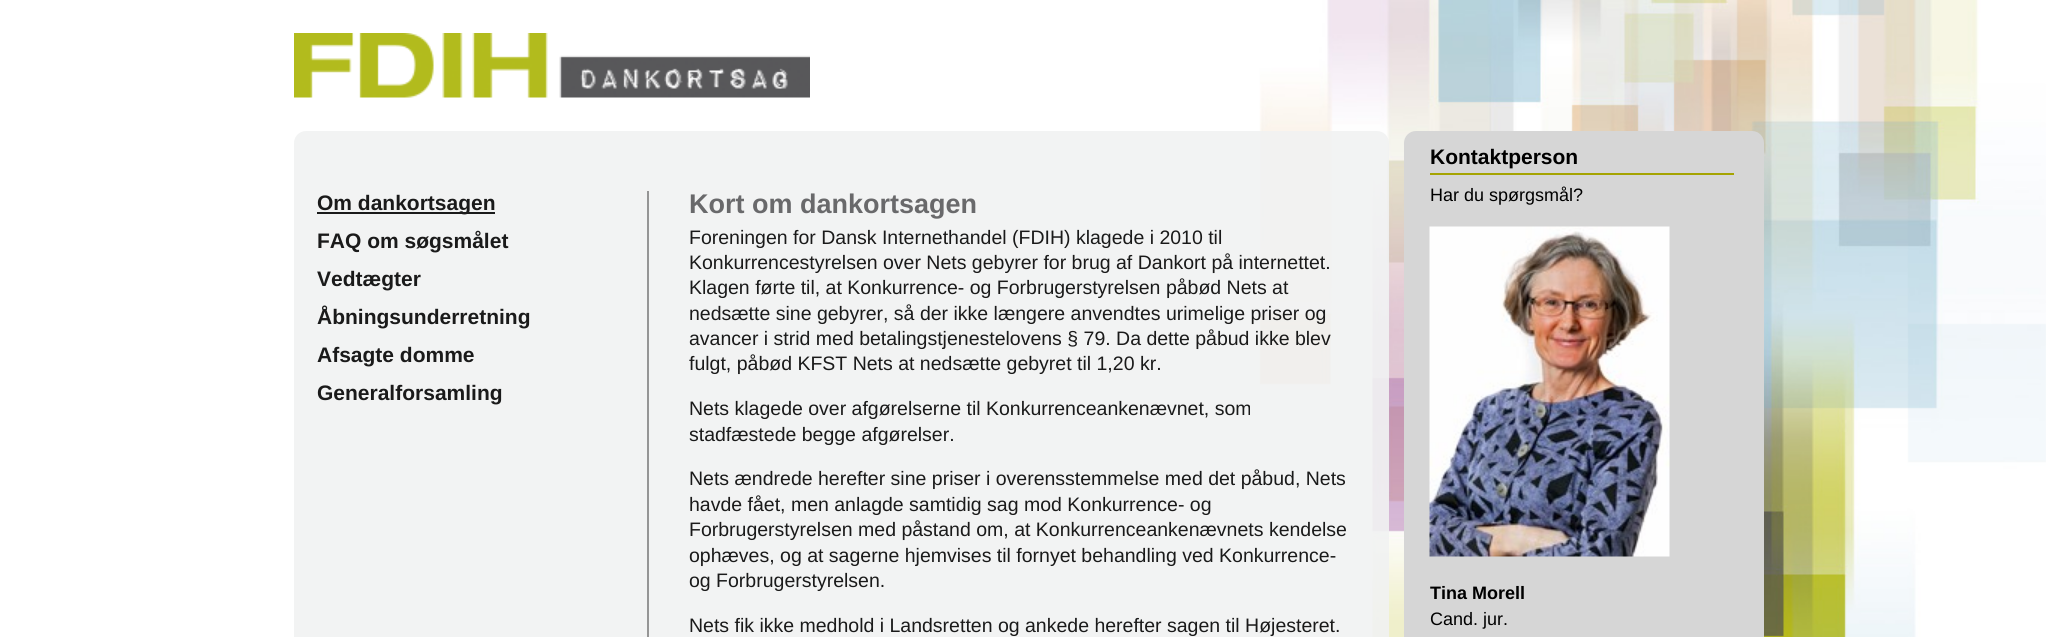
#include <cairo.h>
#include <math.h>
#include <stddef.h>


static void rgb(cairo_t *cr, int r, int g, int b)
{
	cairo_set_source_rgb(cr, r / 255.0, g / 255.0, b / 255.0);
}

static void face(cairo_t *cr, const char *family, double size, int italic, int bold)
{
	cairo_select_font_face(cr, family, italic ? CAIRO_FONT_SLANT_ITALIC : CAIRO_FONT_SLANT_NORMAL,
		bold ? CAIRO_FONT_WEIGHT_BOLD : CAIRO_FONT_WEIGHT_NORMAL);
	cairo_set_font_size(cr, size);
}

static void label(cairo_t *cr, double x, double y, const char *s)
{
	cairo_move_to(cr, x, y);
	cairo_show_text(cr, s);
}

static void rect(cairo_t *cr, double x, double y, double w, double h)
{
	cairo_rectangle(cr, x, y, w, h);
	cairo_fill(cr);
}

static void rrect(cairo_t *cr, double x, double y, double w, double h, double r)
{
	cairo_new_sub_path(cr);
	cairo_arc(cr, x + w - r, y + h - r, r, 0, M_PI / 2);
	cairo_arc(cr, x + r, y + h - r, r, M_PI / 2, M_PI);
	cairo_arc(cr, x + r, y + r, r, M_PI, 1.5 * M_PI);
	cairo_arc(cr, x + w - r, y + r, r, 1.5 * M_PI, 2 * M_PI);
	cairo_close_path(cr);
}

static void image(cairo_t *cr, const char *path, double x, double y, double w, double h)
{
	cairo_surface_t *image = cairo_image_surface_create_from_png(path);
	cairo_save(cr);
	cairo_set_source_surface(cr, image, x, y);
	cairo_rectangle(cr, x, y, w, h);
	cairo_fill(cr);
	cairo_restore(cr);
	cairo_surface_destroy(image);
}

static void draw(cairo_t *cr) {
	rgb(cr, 255, 255, 255);
	cairo_paint(cr);
	image(cr, "image0.png", 1259, 0, 787, 637);
	image(cr, "image1.png", 294, 33, 516, 65);
	cairo_set_source_rgba(cr, 0.945, 0.949, 0.949, 0.9);
	rrect(cr, 294, 131, 1095, 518, 12);
	cairo_fill(cr);
	rgb(cr, 26, 26, 26);
	rect(cr, 317, 212, 178, 2);
	face(cr, "Liberation Sans", 21, 0, 1);
	label(cr, 317, 210, "Om dankortsagen");
	label(cr, 317, 248, "FAQ om søgsmålet");
	label(cr, 317, 286, "Vedtægter");
	label(cr, 317, 324, "Åbningsunderretning");
	label(cr, 317, 362, "Afsagte domme");
	label(cr, 317, 400, "Generalforsamling");
	rgb(cr, 149, 149, 149);
	rect(cr, 647, 191, 2, 446);
	face(cr, "Liberation Sans", 27, 0, 1);
	rgb(cr, 105, 105, 107);
	label(cr, 689, 213, "Kort om dankortsagen");
	face(cr, "Liberation Sans", 19.5, 0, 0);
	rgb(cr, 26, 26, 26);
	label(cr, 689, 244, "Foreningen for Dansk Internethandel (FDIH) klagede i 2010 til");
	label(cr, 689, 269, "Konkurrencestyrelsen over Nets gebyrer for brug af Dankort på internettet.");
	label(cr, 689, 294, "Klagen førte til, at Konkurrence- og Forbrugerstyrelsen påbød Nets at");
	label(cr, 689, 320, "nedsætte sine gebyrer, så der ikke længere anvendtes urimelige priser og");
	label(cr, 689, 345, "avancer i strid med betalingstjenestelovens § 79. Da dette påbud ikke blev");
	label(cr, 689, 370, "fulgt, påbød KFST Nets at nedsætte gebyret til 1,20 kr.");
	label(cr, 689, 415, "Nets klagede over afgørelserne til Konkurrenceankenævnet, som");
	label(cr, 689, 441, "stadfæstede begge afgørelser.");
	label(cr, 689, 485, "Nets ændrede herefter sine priser i overensstemmelse med det påbud, Nets");
	label(cr, 689, 511, "havde fået, men anlagde samtidig sag mod Konkurrence- og");
	label(cr, 689, 536, "Forbrugerstyrelsen med påstand om, at Konkurrenceankenævnets kendelse");
	label(cr, 689, 562, "ophæves, og at sagerne hjemvises til fornyet behandling ved Konkurrence-");
	label(cr, 689, 587, "og Forbrugerstyrelsen.");
	label(cr, 689, 632, "Nets fik ikke medhold i Landsretten og ankede herefter sagen til Højesteret.");
	rgb(cr, 214, 214, 214);
	rrect(cr, 1404, 131, 360, 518, 12);
	cairo_fill(cr);
	rgb(cr, 165, 164, 2);
	rect(cr, 1430, 173, 304, 2);
	face(cr, "Liberation Sans", 21, 0, 1);
	rgb(cr, 0, 0, 0);
	label(cr, 1430, 164, "Kontaktperson");
	face(cr, "Liberation Sans", 18, 0, 0);
	label(cr, 1430, 201, "Har du spørgsmål?");
	image(cr, "image2.png", 1429, 226, 241, 331);
	face(cr, "Liberation Sans", 18, 0, 1);
	label(cr, 1430, 599, "Tina Morell");
	face(cr, "Liberation Sans", 18, 0, 0);
	label(cr, 1430, 625, "Cand. jur.");
}

int main(void) {
	cairo_surface_t *surface = cairo_image_surface_create(CAIRO_FORMAT_RGB24, 2058, 637);
	cairo_t *cr = cairo_create(surface);
	cairo_font_options_t *options = cairo_font_options_create();
	cairo_font_options_set_hint_metrics(options, CAIRO_HINT_METRICS_OFF);
	cairo_font_options_set_hint_style(options, CAIRO_HINT_STYLE_NONE);
	cairo_set_font_options(cr, options);
	cairo_set_miter_limit(cr, 4);
	draw(cr);
	cairo_surface_write_to_png(surface, "render.png");
	cairo_font_options_destroy(options);
	cairo_destroy(cr);
	cairo_surface_destroy(surface);
	return 0;
}
